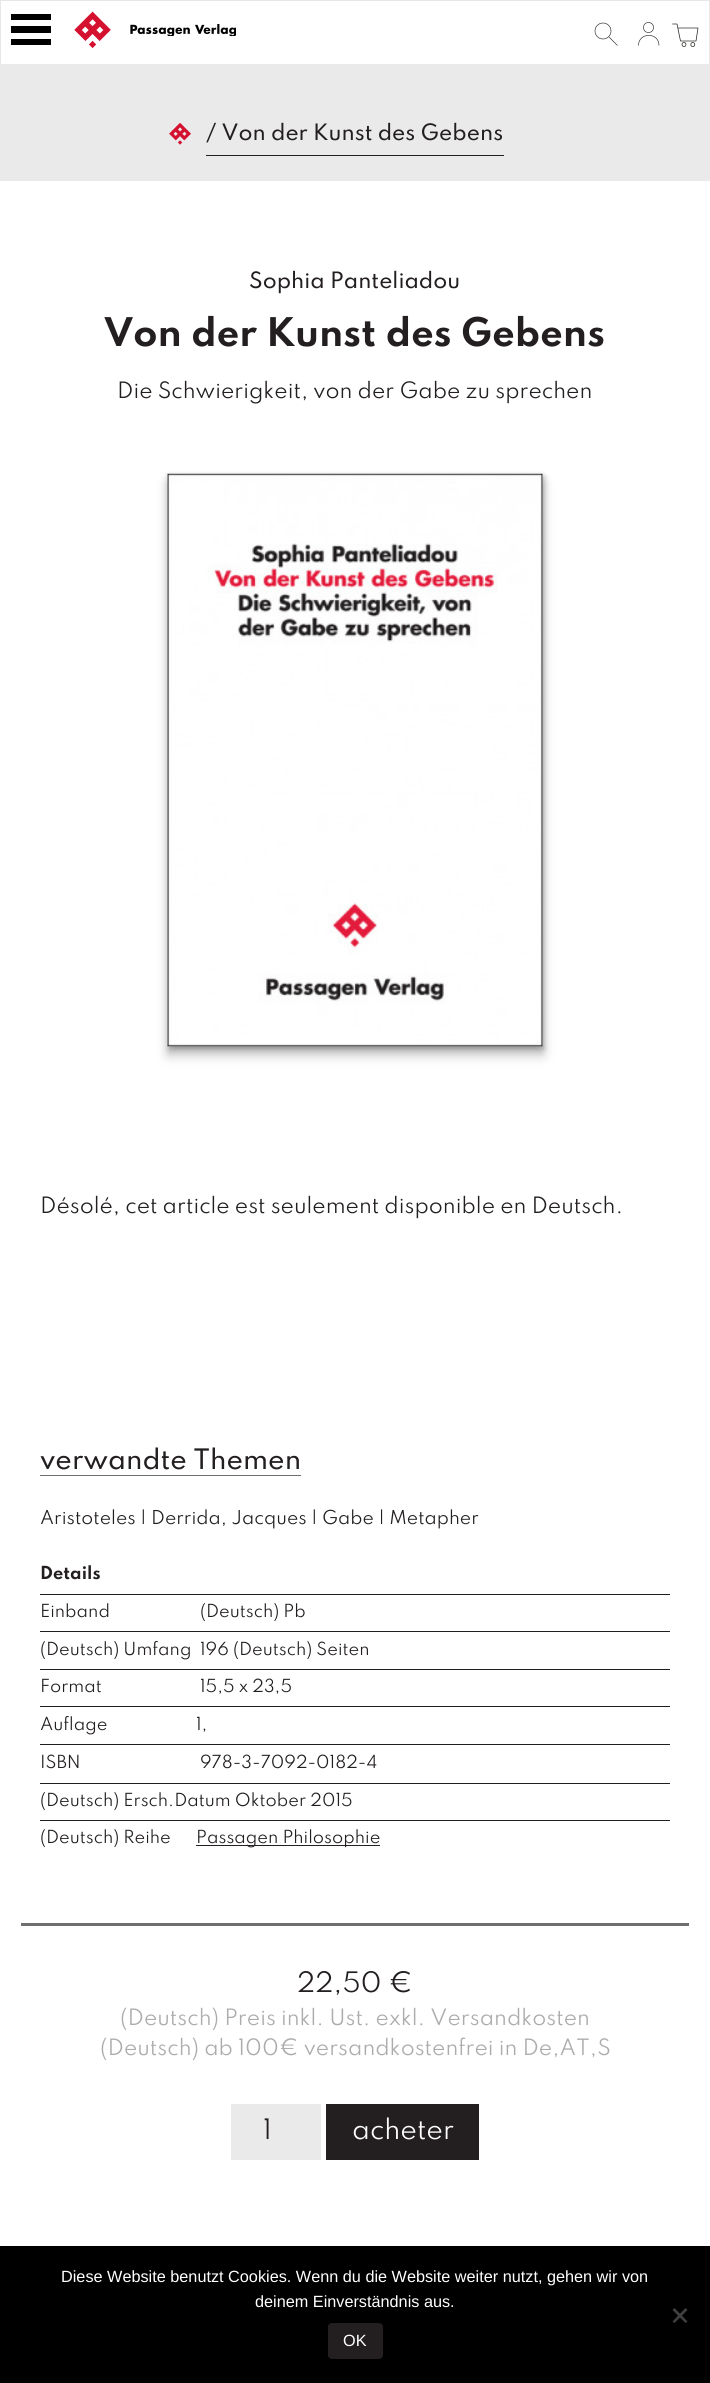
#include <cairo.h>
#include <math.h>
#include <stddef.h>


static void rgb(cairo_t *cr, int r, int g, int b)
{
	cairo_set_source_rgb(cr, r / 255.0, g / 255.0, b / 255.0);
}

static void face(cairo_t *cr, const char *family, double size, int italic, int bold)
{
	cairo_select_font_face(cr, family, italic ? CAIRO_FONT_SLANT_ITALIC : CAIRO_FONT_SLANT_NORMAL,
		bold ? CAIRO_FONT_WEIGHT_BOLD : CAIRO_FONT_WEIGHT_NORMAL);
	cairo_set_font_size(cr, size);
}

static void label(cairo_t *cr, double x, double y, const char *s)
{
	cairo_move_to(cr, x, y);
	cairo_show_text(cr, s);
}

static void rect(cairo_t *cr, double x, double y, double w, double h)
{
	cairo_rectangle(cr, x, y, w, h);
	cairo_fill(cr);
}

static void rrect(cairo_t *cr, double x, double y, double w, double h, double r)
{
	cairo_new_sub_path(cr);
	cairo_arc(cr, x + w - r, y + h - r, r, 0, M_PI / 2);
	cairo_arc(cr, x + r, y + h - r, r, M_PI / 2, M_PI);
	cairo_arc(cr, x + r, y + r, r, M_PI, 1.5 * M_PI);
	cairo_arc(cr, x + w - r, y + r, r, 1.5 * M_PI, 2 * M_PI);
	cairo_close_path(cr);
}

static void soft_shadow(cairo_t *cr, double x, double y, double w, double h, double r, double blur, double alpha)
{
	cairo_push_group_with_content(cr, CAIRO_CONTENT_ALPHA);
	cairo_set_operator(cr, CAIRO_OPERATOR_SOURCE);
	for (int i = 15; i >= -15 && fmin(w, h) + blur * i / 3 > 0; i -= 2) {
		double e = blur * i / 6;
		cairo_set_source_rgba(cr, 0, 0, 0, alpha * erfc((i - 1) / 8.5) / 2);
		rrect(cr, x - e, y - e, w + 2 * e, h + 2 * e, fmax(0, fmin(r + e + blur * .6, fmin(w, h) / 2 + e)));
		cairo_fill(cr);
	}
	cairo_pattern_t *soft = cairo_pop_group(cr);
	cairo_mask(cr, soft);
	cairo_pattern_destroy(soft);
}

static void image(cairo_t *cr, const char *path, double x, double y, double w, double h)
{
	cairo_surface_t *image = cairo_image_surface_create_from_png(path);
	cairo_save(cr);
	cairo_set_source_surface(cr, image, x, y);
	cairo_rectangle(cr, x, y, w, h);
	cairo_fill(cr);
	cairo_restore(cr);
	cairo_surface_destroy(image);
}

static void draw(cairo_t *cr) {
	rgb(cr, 234, 234, 235);
	cairo_paint(cr);
	rgb(cr, 255, 255, 255);
	rect(cr, 1, 1, 708, 63);
	rgb(cr, 231, 231, 231);
	rect(cr, 0, 0, 710, 1);
	rect(cr, 709, 0, 1, 64);
	rect(cr, 0, 0, 1, 64);
	rgb(cr, 0, 0, 0);
	rect(cr, 11, 39, 40, 6);
	rect(cr, 11, 26, 40, 7);
	rect(cr, 11, 14, 40, 6);
	image(cr, "image0.png", 74, 11, 37, 37);
	image(cr, "image1.png", 130, 24, 106, 12);
	cairo_arc(cr, 603, 31, 8, 0, 2 * M_PI);
	rgb(cr, 29, 29, 27);
	cairo_set_line_width(cr, 0.6);
	cairo_stroke(cr);
	cairo_new_path(cr);
	cairo_move_to(cr, 609, 37);
	cairo_line_to(cr, 617.5, 45.5);
	cairo_stroke(cr);
	cairo_arc(cr, 648.5, 27.5, 5, 0, 2 * M_PI);
	cairo_stroke(cr);
	cairo_new_path(cr);
	cairo_move_to(cr, 638.5, 45.5);
	cairo_curve_to(cr, 638.5, 32, 659, 32, 659, 45.5);
	cairo_stroke(cr);
	cairo_new_path(cr);
	cairo_move_to(cr, 678, 28);
	cairo_line_to(cr, 698, 28);
	cairo_line_to(cr, 696, 41);
	cairo_line_to(cr, 680.5, 41);
	cairo_line_to(cr, 677, 24);
	cairo_line_to(cr, 672.5, 24);
	cairo_set_line_width(cr, 0.7);
	cairo_set_line_cap(cr, CAIRO_LINE_CAP_ROUND);
	cairo_set_line_join(cr, CAIRO_LINE_JOIN_ROUND);
	cairo_stroke(cr);
	cairo_arc(cr, 684, 44.5, 2, 0, 2 * M_PI);
	cairo_set_line_cap(cr, CAIRO_LINE_CAP_BUTT);
	cairo_set_line_join(cr, CAIRO_LINE_JOIN_MITER);
	cairo_stroke(cr);
	cairo_arc(cr, 692.8, 44.5, 2, 0, 2 * M_PI);
	cairo_stroke(cr);
	rgb(cr, 35, 31, 32);
	rect(cr, 206, 155, 298, 1);
	image(cr, "image2.png", 169, 123, 22, 22);
	face(cr, "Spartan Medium", 20, 0, 0);
	label(cr, 206, 140, "/ Von der Kunst des Gebens");
	rgb(cr, 255, 255, 255);
	rect(cr, 0, 181, 710, 2065);
	rgb(cr, 112, 110, 110);
	rect(cr, 21, 1923, 668, 3);
	rgb(cr, 35, 31, 32);
	label(cr, 249, 288, "Sophia Panteliadou");
	face(cr, "Spartan", 35, 0, 1);
	label(cr, 104, 346, "Von der Kunst des Gebens");
	face(cr, "Spartan", 20, 0, 0);
	label(cr, 117, 398, "Die Schwierigkeit, von der Gabe zu sprechen");
	rgb(cr, 0, 0, 0);
	soft_shadow(cr, 168, 478, 375, 572, 0, 5, 0.08);
	soft_shadow(cr, 168, 483, 375, 572, 0, 6, 0.23);
	soft_shadow(cr, 169, 476, 375, 573, 0, 2.5, 0.23);
	image(cr, "image3.png", 167, 473, 376, 574);
	rgb(cr, 35, 31, 32);
	label(cr, 40, 1213, "Désolé, cet article est seulement disponible en Deutsch.");
	face(cr, "Spartan Medium", 25, 0, 0);
	label(cr, 40, 1469, "verwandte Themen");
	rgb(cr, 112, 110, 110);
	rect(cr, 40, 1475, 261, 1);
	face(cr, "Spartan", 17, 0, 0);
	rgb(cr, 35, 31, 32);
	label(cr, 40, 1524, "Aristoteles | Derrida, Jacques | Gabe | Metapher");
	rect(cr, 40, 1594, 630, 1);
	face(cr, "Spartan", 16, 0, 1);
	label(cr, 40, 1579, "Details");
	rect(cr, 40, 1631, 630, 1);
	face(cr, "Spartan", 16, 0, 0);
	label(cr, 40, 1617, "Einband");
	label(cr, 200, 1617, "(Deutsch) Pb");
	rect(cr, 40, 1669, 630, 1);
	label(cr, 40, 1655, "(Deutsch) Umfang");
	label(cr, 200, 1655, "196 (Deutsch) Seiten");
	rect(cr, 40, 1706, 630, 1);
	label(cr, 40, 1692, "Format");
	label(cr, 200, 1692, "15,5 x 23,5");
	rect(cr, 40, 1744, 630, 1);
	label(cr, 40, 1730, "Auflage");
	label(cr, 196, 1730, "1,");
	rect(cr, 40, 1783, 630, 1);
	label(cr, 40, 1768, "ISBN");
	label(cr, 200, 1768, "978-3-7092-0182-4");
	rect(cr, 40, 1820, 630, 1);
	label(cr, 40, 1806, "(Deutsch) Ersch.Datum Oktober 2015");
	label(cr, 40, 1843, "(Deutsch) Reihe");
	rect(cr, 196, 1845, 184, 1);
	label(cr, 196, 1843, "Passagen Philosophie");
	face(cr, "Spartan", 25, 0, 0);
	label(cr, 297, 1992, "22,50 €");
	face(cr, "Spartan", 20, 0, 0);
	rgb(cr, 172, 172, 172);
	label(cr, 120, 2025, "(Deutsch) Preis inkl. Ust. exkl. Versandkosten");
	label(cr, 100, 2055, "(Deutsch) ab 100€ versandkostenfrei in De,AT,S");
	rgb(cr, 234, 234, 235);
	rect(cr, 231, 2104, 90, 56);
	face(cr, "Spartan", 25, 0, 0);
	rgb(cr, 35, 31, 32);
	label(cr, 263, 2139, "1");
	rect(cr, 326, 2104, 153, 56);
	rgb(cr, 255, 255, 255);
	label(cr, 352, 2139, "acheter");
	rgb(cr, 0, 0, 0);
	rect(cr, 0, 2246, 710, 137);
	face(cr, "Liberation Sans", 16.25, 0, 0);
	rgb(cr, 255, 255, 255);
	label(cr, 61, 2282, "Diese Website benutzt Cookies. Wenn du die Website weiter nutzt, gehen wir von");
	label(cr, 255, 2307, "deinem Einverständnis aus.");
	rgb(cr, 64, 64, 64);
	cairo_new_path(cr);
	cairo_move_to(cr, 685.5, 2308);
	cairo_line_to(cr, 687.5, 2310);
	cairo_line_to(cr, 674.5, 2323);
	cairo_line_to(cr, 672.5, 2321.5);
	cairo_close_path(cr);
	cairo_fill(cr);
	cairo_new_path(cr);
	cairo_move_to(cr, 672.5, 2310);
	cairo_line_to(cr, 674.5, 2308);
	cairo_line_to(cr, 687.5, 2321.5);
	cairo_line_to(cr, 685.5, 2323);
	cairo_close_path(cr);
	cairo_fill(cr);
	rgb(cr, 35, 31, 32);
	rrect(cr, 328, 2323, 55, 36, 4);
	cairo_fill(cr);
	rgb(cr, 255, 255, 255);
	label(cr, 343, 2346, "OK");
}

int main(void) {
	cairo_surface_t *surface = cairo_image_surface_create(CAIRO_FORMAT_RGB24, 710, 2383);
	cairo_t *cr = cairo_create(surface);
	cairo_font_options_t *options = cairo_font_options_create();
	cairo_font_options_set_hint_metrics(options, CAIRO_HINT_METRICS_OFF);
	cairo_font_options_set_hint_style(options, CAIRO_HINT_STYLE_NONE);
	cairo_set_font_options(cr, options);
	cairo_set_miter_limit(cr, 4);
	draw(cr);
	cairo_surface_write_to_png(surface, "render.png");
	cairo_font_options_destroy(options);
	cairo_destroy(cr);
	cairo_surface_destroy(surface);
	return 0;
}
